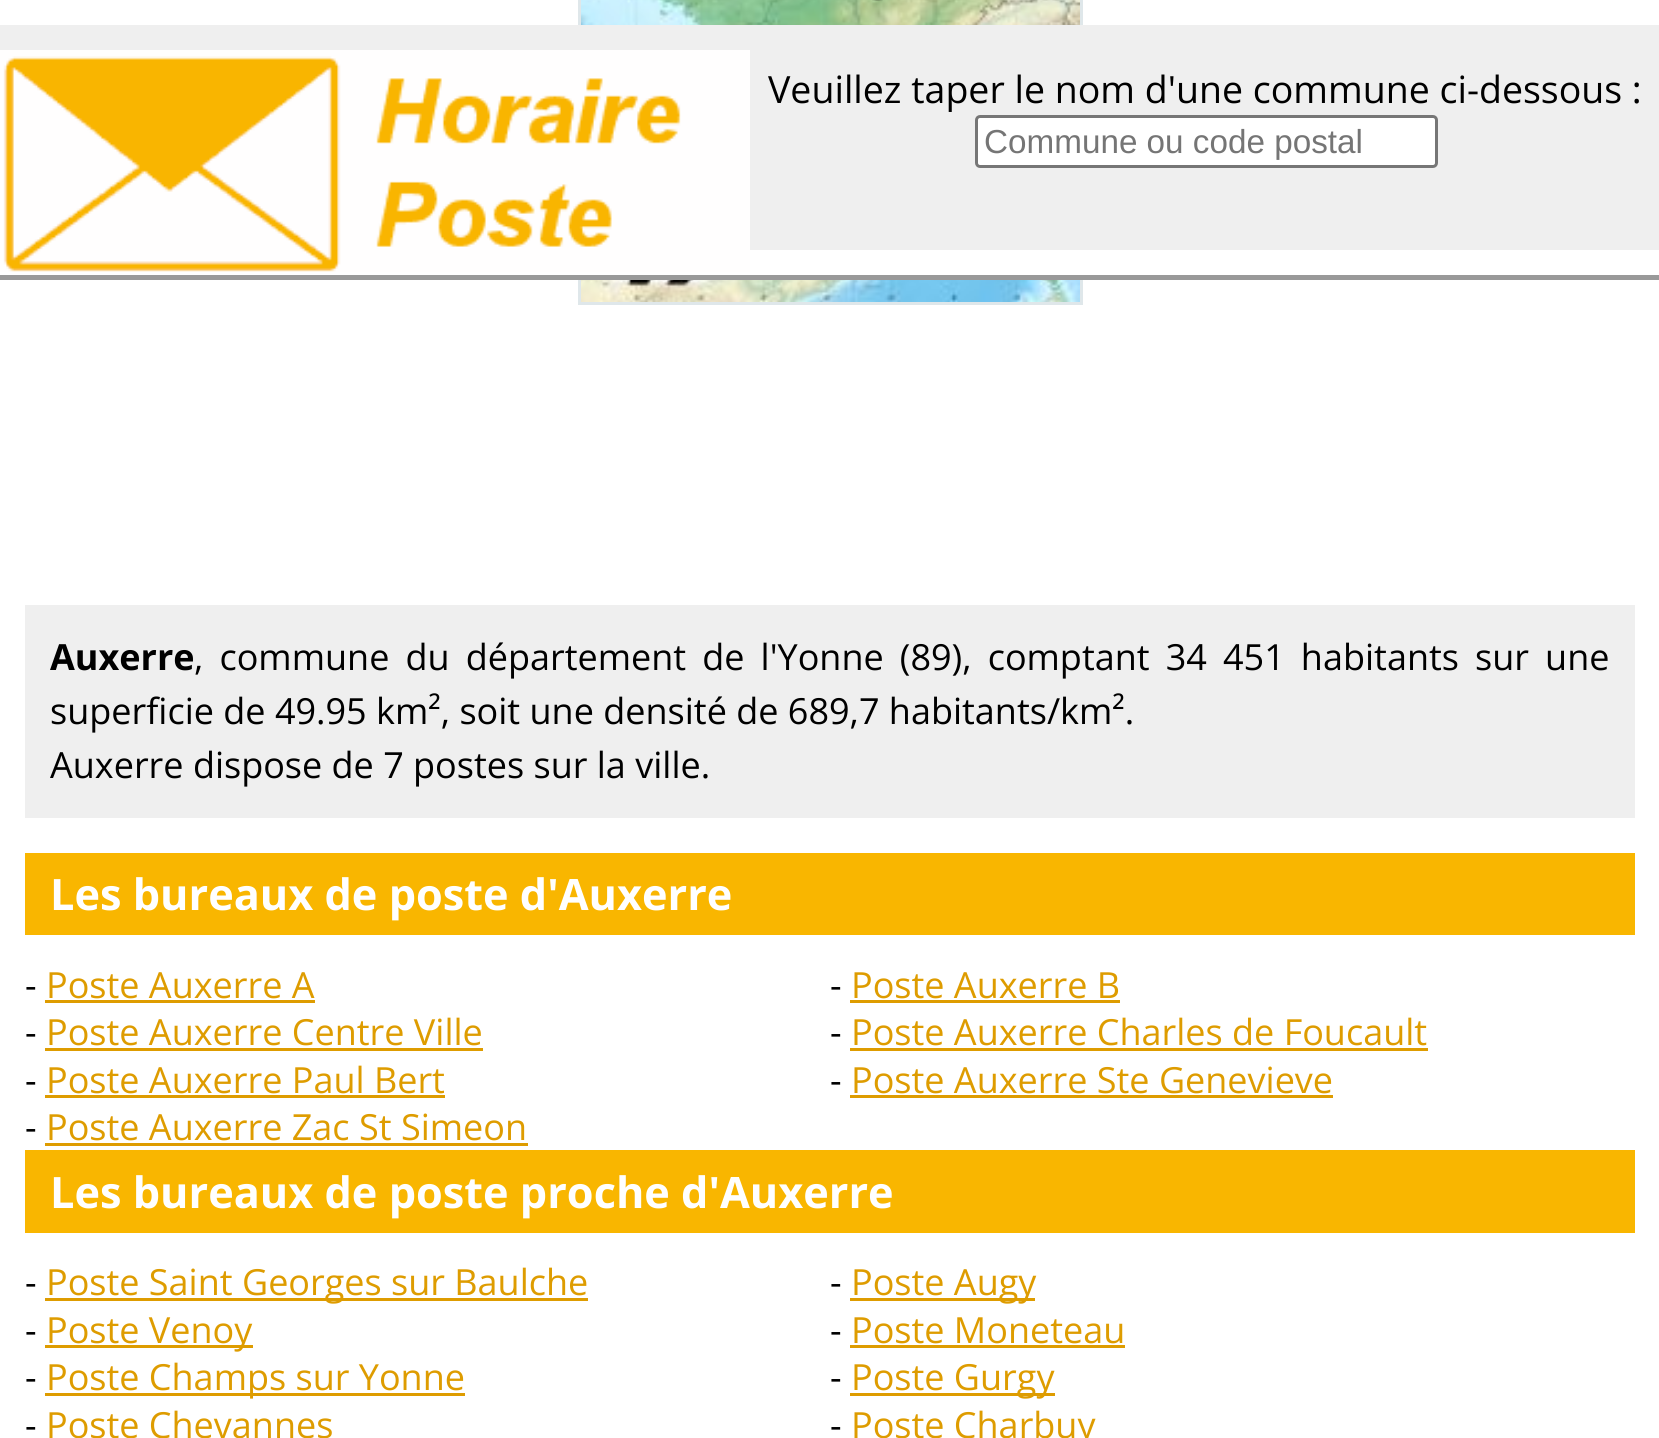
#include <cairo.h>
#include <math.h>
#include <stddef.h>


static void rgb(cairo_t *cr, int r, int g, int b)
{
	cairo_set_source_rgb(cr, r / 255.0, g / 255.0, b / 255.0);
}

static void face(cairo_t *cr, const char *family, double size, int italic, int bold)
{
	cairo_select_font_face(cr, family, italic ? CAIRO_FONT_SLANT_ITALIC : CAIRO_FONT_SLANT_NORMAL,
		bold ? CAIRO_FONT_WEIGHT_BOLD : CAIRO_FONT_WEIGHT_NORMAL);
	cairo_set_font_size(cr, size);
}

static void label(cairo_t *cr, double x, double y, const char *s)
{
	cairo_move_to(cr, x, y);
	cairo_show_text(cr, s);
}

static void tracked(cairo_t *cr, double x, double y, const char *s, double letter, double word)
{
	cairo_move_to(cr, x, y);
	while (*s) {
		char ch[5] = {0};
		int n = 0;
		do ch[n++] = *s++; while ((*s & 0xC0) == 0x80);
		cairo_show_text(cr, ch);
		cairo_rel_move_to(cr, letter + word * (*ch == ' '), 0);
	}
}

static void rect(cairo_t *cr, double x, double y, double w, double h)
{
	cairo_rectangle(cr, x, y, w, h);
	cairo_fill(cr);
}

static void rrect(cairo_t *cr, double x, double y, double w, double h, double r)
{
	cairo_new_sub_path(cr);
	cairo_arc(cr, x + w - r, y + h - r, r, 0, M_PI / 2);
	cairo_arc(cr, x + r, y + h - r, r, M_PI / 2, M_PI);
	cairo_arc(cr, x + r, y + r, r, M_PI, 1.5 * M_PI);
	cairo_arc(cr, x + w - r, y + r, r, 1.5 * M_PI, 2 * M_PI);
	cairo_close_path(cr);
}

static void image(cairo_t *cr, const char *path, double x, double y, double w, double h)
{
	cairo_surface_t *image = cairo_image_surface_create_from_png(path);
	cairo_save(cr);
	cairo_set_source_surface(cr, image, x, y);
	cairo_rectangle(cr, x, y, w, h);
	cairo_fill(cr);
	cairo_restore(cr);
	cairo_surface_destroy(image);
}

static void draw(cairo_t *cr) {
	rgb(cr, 255, 255, 255);
	cairo_paint(cr);
	image(cr, "image1.png", 581, 0, 499, 302);
	cairo_rectangle(cr, 579.5, -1.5, 502, 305);
	rgb(cr, 223, 231, 234);
	cairo_set_line_width(cr, 3);
	cairo_stroke(cr);
	rgb(cr, 255, 255, 255);
	rect(cr, 578, 250, 505, 25);
	rgb(cr, 153, 153, 153);
	rect(cr, 0, 275, 1659, 5);
	rgb(cr, 239, 239, 239);
	rect(cr, 0, 25, 1659, 225);
	image(cr, "image0.png", 0, 50, 750, 222);
	face(cr, "Open Sans", 37.5, 0, 0);
	rgb(cr, 0, 0, 0);
	label(cr, 768, 103, "Veuillez taper le nom d'une commune ci-dessous :");
	rgb(cr, 255, 255, 255);
	rrect(cr, 976.5, 116.5, 460, 50, 3.5);
	cairo_fill_preserve(cr);
	rgb(cr, 118, 118, 118);
	cairo_stroke(cr);
	face(cr, "Liberation Sans", 33.25, 0, 0);
	rgb(cr, 117, 117, 117);
	label(cr, 984, 153, "Commune ou code postal");
	image(cr, "image2.png", 872, 0, 11, 1);
	rgb(cr, 239, 239, 239);
	rect(cr, 25, 605, 1610, 213);
	face(cr, "Open Sans", 36, 0, 1);
	rgb(cr, 0, 0, 0);
	label(cr, 50, 670, "Auxerre");
	face(cr, "Open Sans", 36, 0, 0);
	tracked(cr, 194, 670, ", commune du département de l'Yonne (89), comptant 34 451 habitants sur une", 0, 6.75);
	label(cr, 50, 724, "superficie de 49.95 km², soit une densité de 689,7 habitants/km².");
	label(cr, 50, 778, "Auxerre dispose de 7 postes sur la ville.");
	rgb(cr, 249, 182, 0);
	rect(cr, 25, 853, 1610, 82);
	face(cr, "Open Sans", 43.25, 0, 1);
	rgb(cr, 255, 255, 255);
	label(cr, 50, 910, "Les bureaux de poste d'Auxerre");
	face(cr, "Open Sans", 36, 0, 0);
	rgb(cr, 0, 0, 0);
	label(cr, 25, 998, "-");
	rgb(cr, 222, 156, 0);
	label(cr, 46, 998, "Poste Auxerre A");
	rect(cr, 45, 1000, 270, 3);
	rgb(cr, 0, 0, 0);
	label(cr, 830, 998, "-");
	rgb(cr, 222, 156, 0);
	label(cr, 851, 998, "Poste Auxerre B");
	rect(cr, 850, 1000, 270, 3);
	rgb(cr, 0, 0, 0);
	label(cr, 25, 1045, "-");
	rgb(cr, 222, 156, 0);
	label(cr, 46, 1045, "Poste Auxerre Centre Ville");
	rect(cr, 45, 1048, 438, 3);
	rgb(cr, 0, 0, 0);
	label(cr, 830, 1045, "-");
	rgb(cr, 222, 156, 0);
	label(cr, 851, 1045, "Poste Auxerre Charles de Foucault");
	rect(cr, 850, 1048, 578, 3);
	rgb(cr, 0, 0, 0);
	label(cr, 25, 1093, "-");
	rgb(cr, 222, 156, 0);
	label(cr, 46, 1093, "Poste Auxerre Paul Bert");
	rect(cr, 45, 1095, 400, 3);
	rgb(cr, 0, 0, 0);
	label(cr, 830, 1093, "-");
	rgb(cr, 222, 156, 0);
	label(cr, 851, 1093, "Poste Auxerre Ste Genevieve");
	rect(cr, 850, 1095, 483, 3);
	rgb(cr, 0, 0, 0);
	label(cr, 25, 1140, "-");
	rgb(cr, 222, 156, 0);
	label(cr, 46, 1140, "Poste Auxerre Zac St Simeon");
	rect(cr, 45, 1143, 483, 3);
	rgb(cr, 249, 182, 0);
	rect(cr, 25, 1150, 1610, 83);
	face(cr, "Open Sans", 43.25, 0, 1);
	rgb(cr, 255, 255, 255);
	label(cr, 50, 1208, "Les bureaux de poste proche d'Auxerre");
	face(cr, "Open Sans", 36, 0, 0);
	rgb(cr, 0, 0, 0);
	label(cr, 25, 1295, "-");
	rgb(cr, 222, 156, 0);
	rect(cr, 45, 1298, 543, 3);
	label(cr, 46, 1295, "Poste Saint Georges sur Baulche");
	rgb(cr, 0, 0, 0);
	label(cr, 830, 1295, "-");
	rgb(cr, 222, 156, 0);
	rect(cr, 850, 1298, 185, 3);
	label(cr, 851, 1295, "Poste Augy");
	rgb(cr, 0, 0, 0);
	label(cr, 25, 1343, "-");
	rgb(cr, 222, 156, 0);
	rect(cr, 45, 1345, 208, 3);
	label(cr, 46, 1343, "Poste Venoy");
	rgb(cr, 0, 0, 0);
	label(cr, 830, 1343, "-");
	rgb(cr, 222, 156, 0);
	label(cr, 851, 1343, "Poste Moneteau");
	rect(cr, 850, 1345, 275, 3);
	rgb(cr, 0, 0, 0);
	label(cr, 25, 1390, "-");
	rgb(cr, 222, 156, 0);
	rect(cr, 45, 1393, 420, 3);
	label(cr, 46, 1390, "Poste Champs sur Yonne");
	rgb(cr, 0, 0, 0);
	label(cr, 830, 1390, "-");
	rgb(cr, 222, 156, 0);
	rect(cr, 850, 1393, 205, 3);
	label(cr, 851, 1390, "Poste Gurgy");
	rgb(cr, 0, 0, 0);
	label(cr, 25, 1438, "-");
	rgb(cr, 222, 156, 0);
	label(cr, 46, 1438, "Poste Chevannes");
	rgb(cr, 0, 0, 0);
	label(cr, 830, 1438, "-");
	rgb(cr, 222, 156, 0);
	label(cr, 851, 1438, "Poste Charbuy");
}

int main(void) {
	cairo_surface_t *surface = cairo_image_surface_create(CAIRO_FORMAT_RGB24, 1659, 1438);
	cairo_t *cr = cairo_create(surface);
	cairo_font_options_t *options = cairo_font_options_create();
	cairo_font_options_set_hint_metrics(options, CAIRO_HINT_METRICS_OFF);
	cairo_font_options_set_hint_style(options, CAIRO_HINT_STYLE_NONE);
	cairo_set_font_options(cr, options);
	cairo_set_miter_limit(cr, 4);
	draw(cr);
	cairo_surface_write_to_png(surface, "render.png");
	cairo_font_options_destroy(options);
	cairo_destroy(cr);
	cairo_surface_destroy(surface);
	return 0;
}
